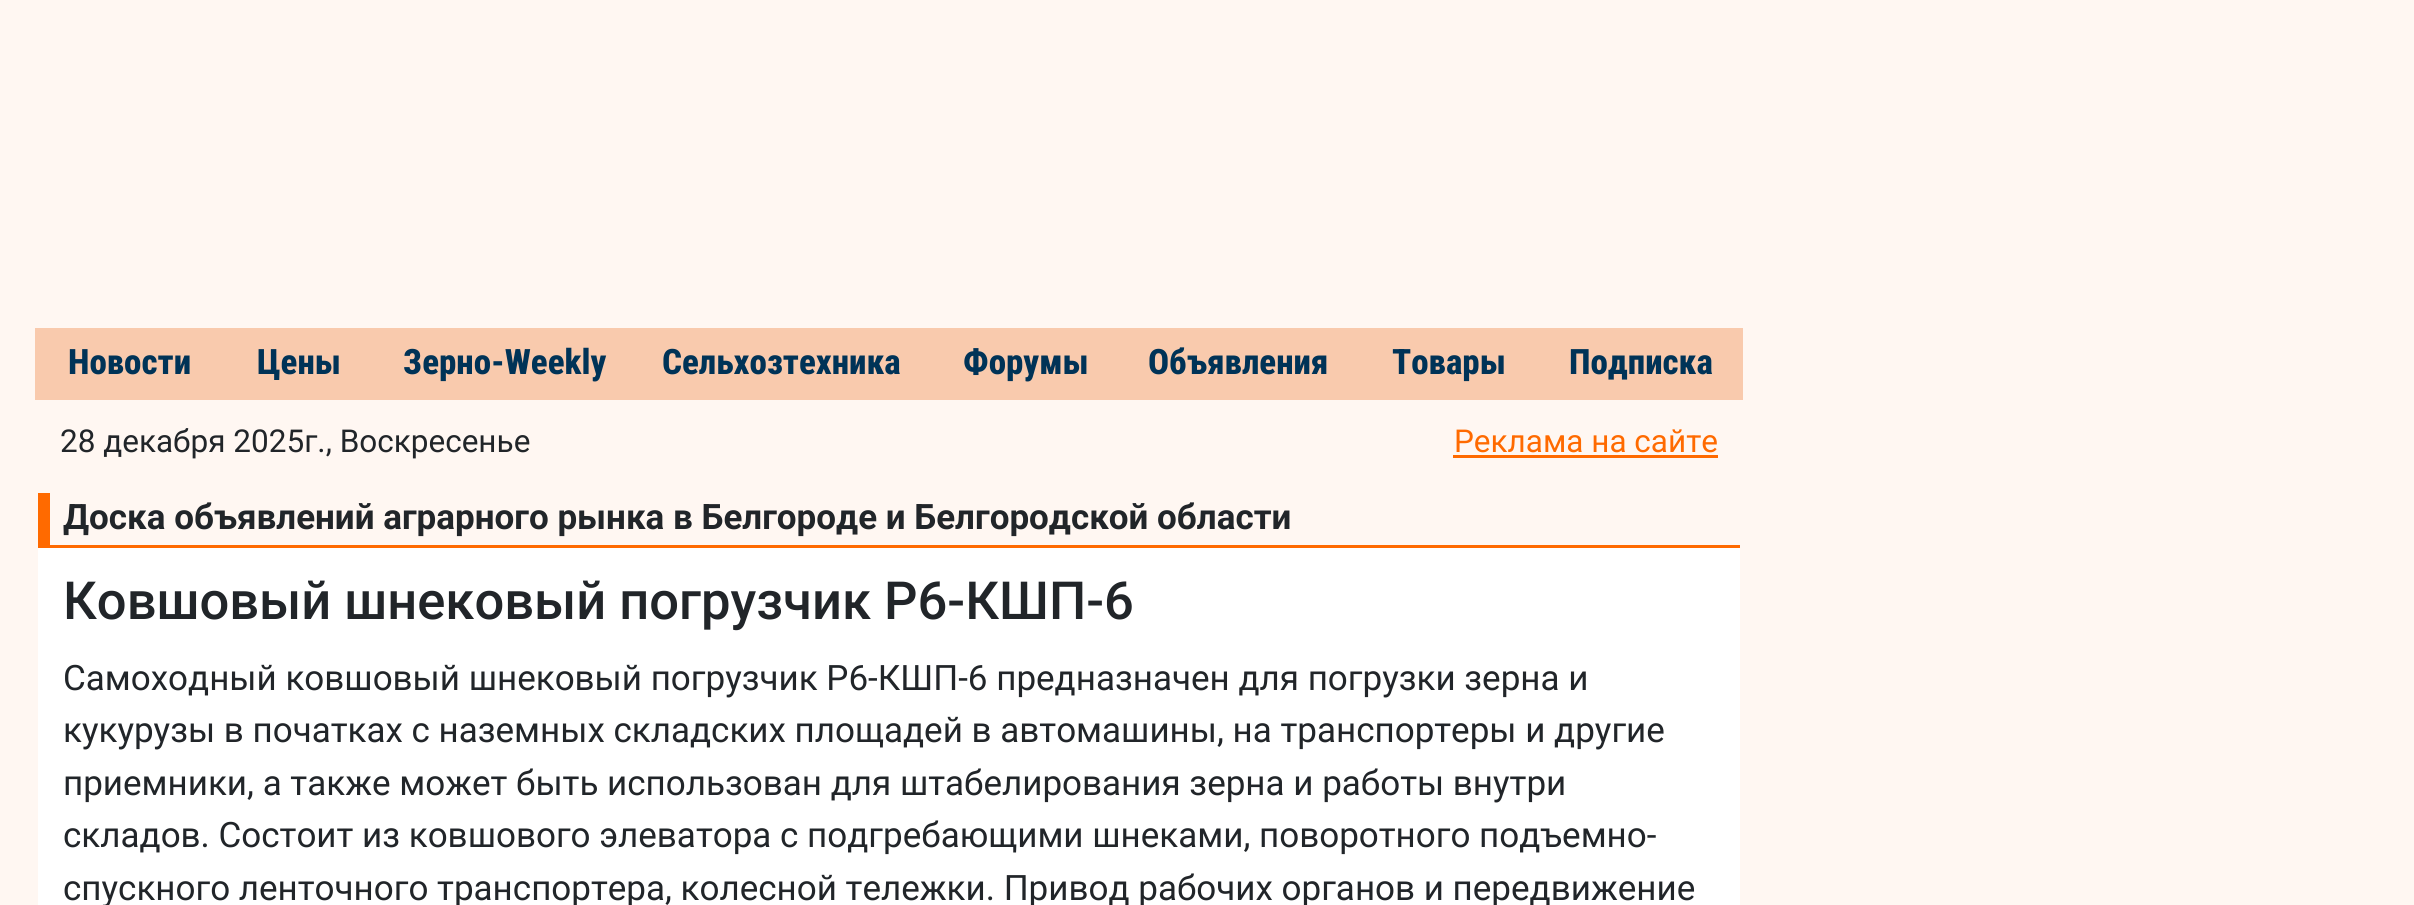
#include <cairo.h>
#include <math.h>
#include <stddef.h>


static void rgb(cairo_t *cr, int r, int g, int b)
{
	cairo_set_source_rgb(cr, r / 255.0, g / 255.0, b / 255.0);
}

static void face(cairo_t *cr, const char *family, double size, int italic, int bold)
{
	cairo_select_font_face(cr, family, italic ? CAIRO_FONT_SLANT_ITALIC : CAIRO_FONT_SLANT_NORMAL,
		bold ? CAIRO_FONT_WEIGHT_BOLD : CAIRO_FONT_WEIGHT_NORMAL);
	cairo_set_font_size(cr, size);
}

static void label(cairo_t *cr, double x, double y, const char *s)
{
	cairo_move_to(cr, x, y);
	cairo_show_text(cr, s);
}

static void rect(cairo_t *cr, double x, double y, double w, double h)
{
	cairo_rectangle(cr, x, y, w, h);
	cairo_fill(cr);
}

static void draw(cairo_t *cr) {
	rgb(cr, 255, 247, 242);
	cairo_paint(cr);
	rgb(cr, 249, 202, 173);
	rect(cr, 35, 328, 1708, 72);
	face(cr, "Roboto Condensed ExtraBold", 35, 0, 0);
	rgb(cr, 0, 51, 87);
	label(cr, 68, 374, "Новости");
	label(cr, 257, 374, "Цены");
	label(cr, 403, 374, "Зерно-Weekly");
	label(cr, 662, 374, "Сельхозтехника");
	label(cr, 963, 374, "Форумы");
	label(cr, 1148, 374, "Объявления");
	label(cr, 1392, 374, "Товары");
	label(cr, 1569, 374, "Подписка");
	face(cr, "Roboto", 31.5, 0, 0);
	rgb(cr, 33, 37, 41);
	label(cr, 60, 452, "28 декабря 2025г., Воскресенье");
	rgb(cr, 255, 106, 0);
	label(cr, 1454, 452, "Реклама на сайте");
	rect(cr, 1453, 455, 265, 3);
	rect(cr, 50, 545, 1690, 3);
	rect(cr, 38, 493, 12, 55);
	face(cr, "Roboto", 35, 0, 1);
	rgb(cr, 33, 37, 41);
	label(cr, 63, 529, "Доска объявлений аграрного рынка в Белгороде и Белгородской области");
	rgb(cr, 255, 255, 255);
	rect(cr, 38, 548, 1702, 357);
	face(cr, "Roboto Medium", 52.5, 0, 0);
	rgb(cr, 33, 37, 41);
	label(cr, 63, 619, "Ковшовый шнековый погрузчик Р6-КШП-6");
	face(cr, "Roboto", 35, 0, 0);
	label(cr, 63, 690, "Самоходный ковшовый шнековый погрузчик Р6-КШП-6 предназначен для погрузки зерна и");
	label(cr, 63, 742, "кукурузы в початках с наземных складских площадей в автомашины, на транспортеры и другие");
	label(cr, 63, 795, "приемники, а также может быть использован для штабелирования зерна и работы внутри");
	label(cr, 63, 847, "складов. Состоит из ковшового элеватора с подгребающими шнеками, поворотного подъемно-");
	label(cr, 63, 900, "спускного ленточного транспортера, колесной тележки. Привод рабочих органов и передвижение");
}

int main(void) {
	cairo_surface_t *surface = cairo_image_surface_create(CAIRO_FORMAT_RGB24, 2414, 905);
	cairo_t *cr = cairo_create(surface);
	cairo_font_options_t *options = cairo_font_options_create();
	cairo_font_options_set_hint_metrics(options, CAIRO_HINT_METRICS_OFF);
	cairo_font_options_set_hint_style(options, CAIRO_HINT_STYLE_NONE);
	cairo_set_font_options(cr, options);
	cairo_set_miter_limit(cr, 4);
	draw(cr);
	cairo_surface_write_to_png(surface, "render.png");
	cairo_font_options_destroy(options);
	cairo_destroy(cr);
	cairo_surface_destroy(surface);
	return 0;
}
